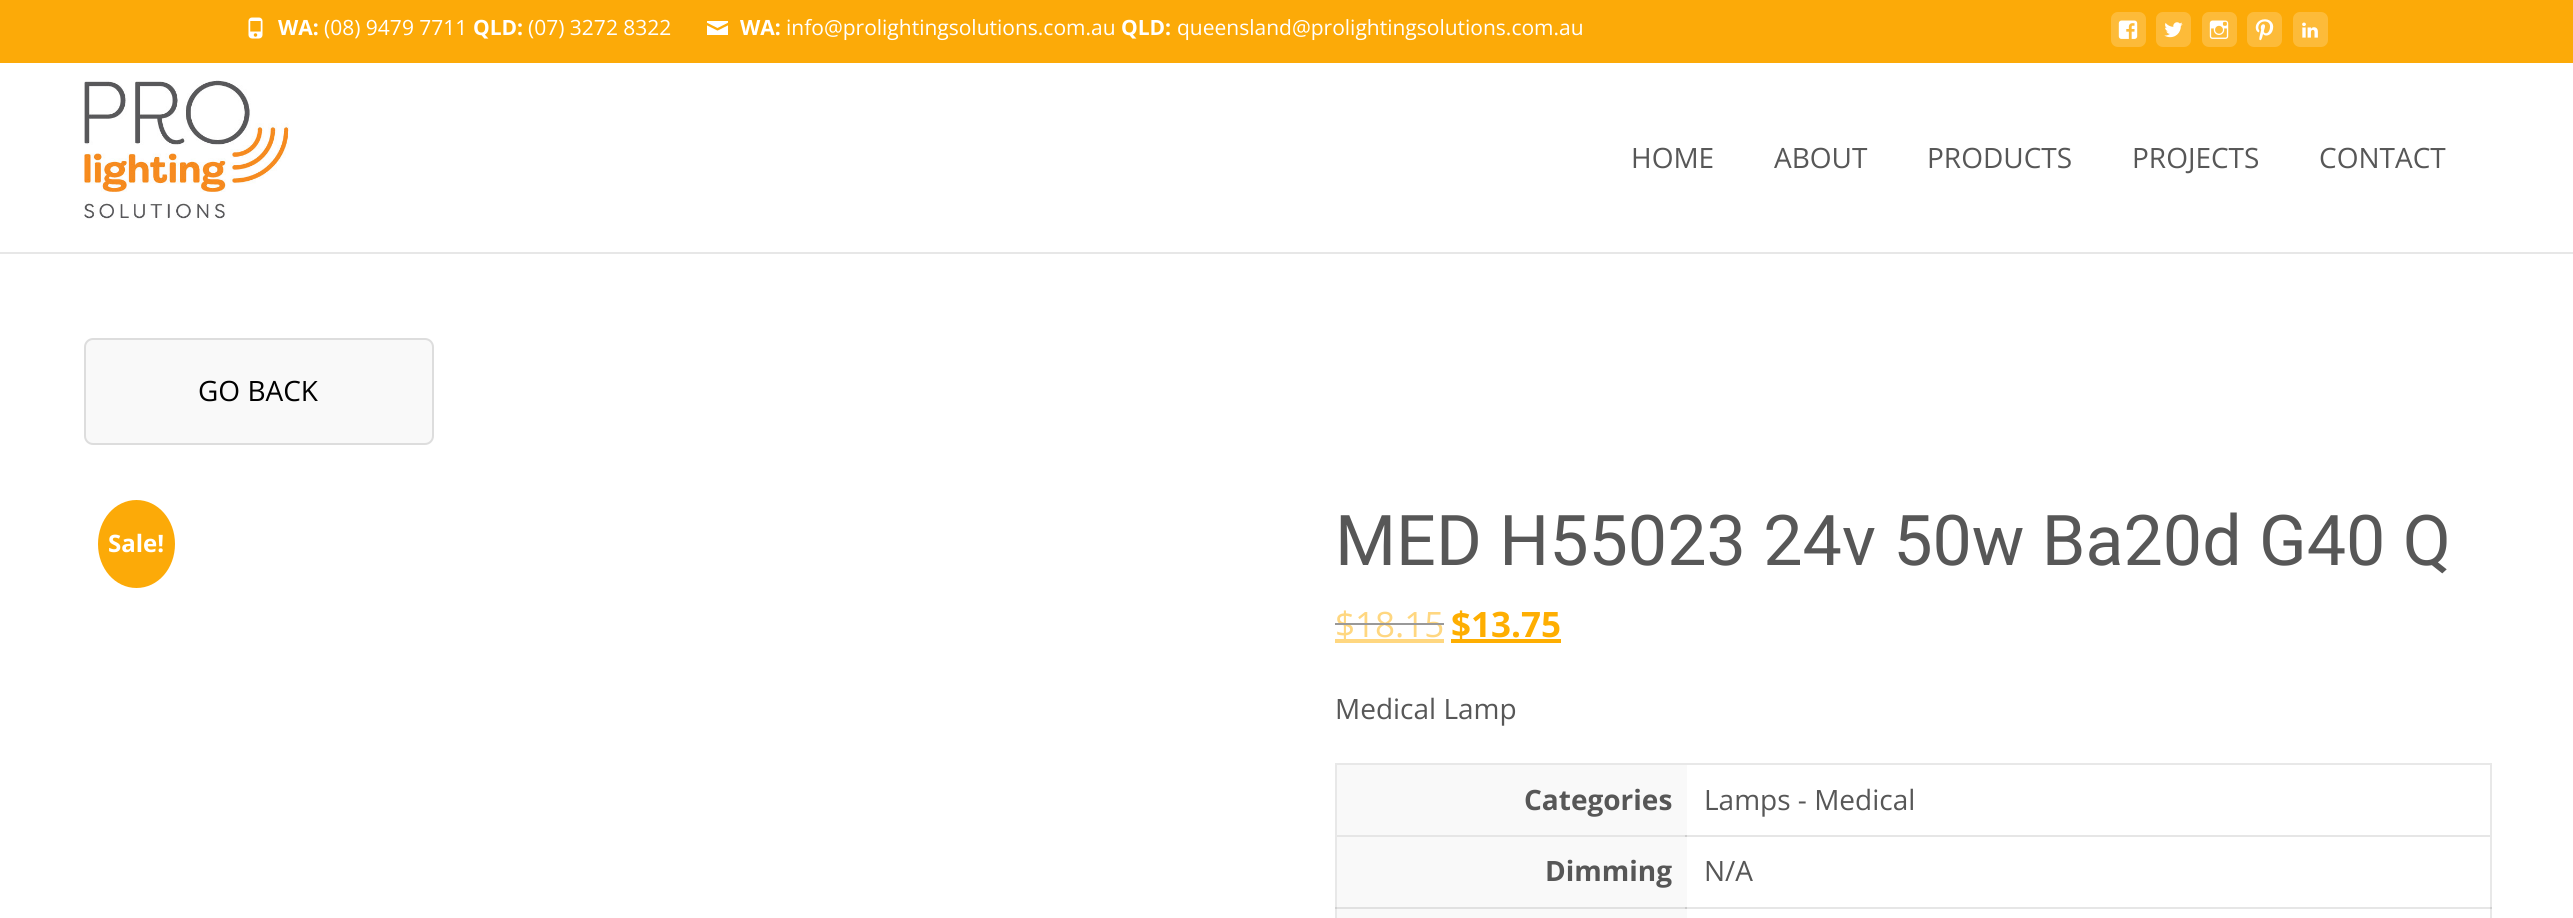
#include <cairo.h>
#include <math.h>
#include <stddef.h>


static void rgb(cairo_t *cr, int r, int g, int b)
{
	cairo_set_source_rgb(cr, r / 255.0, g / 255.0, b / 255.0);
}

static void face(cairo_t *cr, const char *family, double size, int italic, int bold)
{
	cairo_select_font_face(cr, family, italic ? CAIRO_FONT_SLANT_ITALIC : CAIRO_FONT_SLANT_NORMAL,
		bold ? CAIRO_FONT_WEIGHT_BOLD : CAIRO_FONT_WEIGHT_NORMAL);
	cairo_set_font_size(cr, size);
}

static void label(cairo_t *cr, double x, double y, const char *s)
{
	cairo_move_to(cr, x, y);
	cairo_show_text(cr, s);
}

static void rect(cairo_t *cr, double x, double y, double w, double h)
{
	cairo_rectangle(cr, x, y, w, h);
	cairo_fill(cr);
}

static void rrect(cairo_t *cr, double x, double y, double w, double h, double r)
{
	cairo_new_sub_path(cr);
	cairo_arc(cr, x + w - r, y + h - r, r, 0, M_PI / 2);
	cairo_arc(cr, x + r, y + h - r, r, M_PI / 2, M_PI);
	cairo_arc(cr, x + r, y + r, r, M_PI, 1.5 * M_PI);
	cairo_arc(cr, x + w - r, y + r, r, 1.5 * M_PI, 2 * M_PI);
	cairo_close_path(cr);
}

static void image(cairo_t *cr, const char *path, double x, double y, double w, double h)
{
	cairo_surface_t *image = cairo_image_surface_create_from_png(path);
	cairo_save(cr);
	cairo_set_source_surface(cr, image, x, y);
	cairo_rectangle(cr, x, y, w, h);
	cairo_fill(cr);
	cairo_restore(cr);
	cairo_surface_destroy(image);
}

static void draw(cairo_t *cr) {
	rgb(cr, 255, 255, 255);
	cairo_paint(cr);
	rgb(cr, 252, 170, 8);
	rect(cr, 0, 0, 2573, 63);
	image(cr, "image0.png", 248, 17, 15, 22);
	face(cr, "Open Sans", 21, 0, 1);
	rgb(cr, 255, 255, 255);
	label(cr, 278, 35, "WA:");
	face(cr, "Open Sans", 21, 0, 0);
	label(cr, 324, 35, "(08) 9479 7711");
	face(cr, "Open Sans", 21, 0, 1);
	label(cr, 473, 35, "QLD:");
	face(cr, "Open Sans", 21, 0, 0);
	label(cr, 528, 35, "(07) 3272 8322");
	image(cr, "image1.png", 707, 21, 21, 14);
	face(cr, "Open Sans", 21, 0, 1);
	label(cr, 740, 35, "WA:");
	face(cr, "Open Sans", 21, 0, 0);
	label(cr, 786, 35, "info@prolightingsolutions.com.au");
	face(cr, "Open Sans", 21, 0, 1);
	label(cr, 1121, 35, "QLD:");
	face(cr, "Open Sans", 21, 0, 0);
	label(cr, 1177, 35, "queensland@prolightingsolutions.com.au");
	rgb(cr, 253, 187, 57);
	rrect(cr, 2111, 12, 35, 35, 7);
	cairo_fill(cr);
	image(cr, "image2.png", 2118, 20, 20, 19);
	rrect(cr, 2156, 12, 35, 35, 7);
	cairo_fill(cr);
	image(cr, "image3.png", 2164, 22, 19, 16);
	rrect(cr, 2202, 12, 35, 35, 7);
	cairo_fill(cr);
	image(cr, "image4.png", 2209, 20, 20, 19);
	rrect(cr, 2247, 12, 35, 35, 7);
	cairo_fill(cr);
	image(cr, "image5.png", 2255, 19, 19, 22);
	rrect(cr, 2293, 12, 35, 35, 7);
	cairo_fill(cr);
	image(cr, "image6.png", 2302, 22, 16, 16);
	rgb(cr, 231, 231, 231);
	rect(cr, 0, 252, 2573, 2);
	image(cr, "image7.png", 84, 80, 205, 139);
	face(cr, "Open Sans", 28, 0, 0);
	rgb(cr, 87, 87, 87);
	label(cr, 1631, 168, "HOME");
	label(cr, 1774, 168, "ABOUT");
	label(cr, 1927, 168, "PRODUCTS");
	label(cr, 2132, 168, "PROJECTS");
	label(cr, 2319, 168, "CONTACT");
	rgb(cr, 249, 249, 249);
	rrect(cr, 85, 339, 348, 105, 8);
	cairo_fill_preserve(cr);
	rgb(cr, 221, 221, 221);
	cairo_stroke(cr);
	rgb(cr, 0, 0, 0);
	label(cr, 198, 401, "GO BACK");
	rgb(cr, 252, 170, 8);
	cairo_new_path(cr);
	cairo_move_to(cr, 136.5, 500);
	cairo_curve_to(cr, 158, 500, 175, 519.5, 175, 544);
	cairo_curve_to(cr, 175, 568.5, 158, 588, 136.5, 588);
	cairo_curve_to(cr, 115, 588, 98, 568.5, 98, 544);
	cairo_curve_to(cr, 98, 519.5, 115, 500, 136.5, 500);
	cairo_close_path(cr);
	cairo_fill(cr);
	face(cr, "Open Sans", 24, 0, 1);
	rgb(cr, 255, 255, 255);
	label(cr, 108, 552, "Sale!");
	face(cr, "Roboto", 70, 0, 0);
	rgb(cr, 87, 87, 87);
	label(cr, 1335, 565, "MED H55023 24v 50w Ba20d G40 Q");
	rgb(cr, 255, 215, 128);
	rect(cr, 1335, 639, 109, 4);
	face(cr, "Open Sans", 35, 0, 0);
	label(cr, 1335, 637, "$18.15");
	rgb(cr, 153, 153, 153);
	rect(cr, 1335, 623, 109, 2);
	rgb(cr, 254, 174, 1);
	rect(cr, 1451, 639, 110, 4);
	face(cr, "Open Sans", 35, 0, 1);
	label(cr, 1451, 637, "$13.75");
	face(cr, "Open Sans", 28, 0, 0);
	rgb(cr, 87, 87, 87);
	label(cr, 1335, 719, "Medical Lamp");
	rgb(cr, 232, 232, 232);
	rect(cr, 1335, 763, 1157, 2);
	rect(cr, 2490, 763, 2, 74);
	rect(cr, 1335, 763, 2, 74);
	rgb(cr, 249, 249, 249);
	rect(cr, 1337, 765, 350, 70);
	cairo_set_source_rgba(cr, 0, 0, 0, 0.1);
	rect(cr, 1685, 835, 807, 2);
	rect(cr, 1335, 835, 352, 2);
	face(cr, "Open Sans", 28, 0, 1);
	rgb(cr, 87, 87, 87);
	label(cr, 1524, 810, "Categories");
	face(cr, "Open Sans", 28, 0, 0);
	label(cr, 1704, 810, "Lamps - Medical");
	rgb(cr, 232, 232, 232);
	rect(cr, 2490, 835, 2, 83);
	rect(cr, 1335, 835, 2, 83);
	rgb(cr, 249, 249, 249);
	rect(cr, 1337, 837, 350, 81);
	cairo_set_source_rgba(cr, 0, 0, 0, 0.1);
	rect(cr, 1685, 907, 807, 2);
	rect(cr, 1335, 907, 352, 2);
	face(cr, "Open Sans", 28, 0, 1);
	rgb(cr, 87, 87, 87);
	label(cr, 1545, 881, "Dimming");
	face(cr, "Open Sans", 28, 0, 0);
	label(cr, 1704, 881, "N/A");
}

int main(void) {
	cairo_surface_t *surface = cairo_image_surface_create(CAIRO_FORMAT_RGB24, 2573, 918);
	cairo_t *cr = cairo_create(surface);
	cairo_font_options_t *options = cairo_font_options_create();
	cairo_font_options_set_hint_metrics(options, CAIRO_HINT_METRICS_OFF);
	cairo_font_options_set_hint_style(options, CAIRO_HINT_STYLE_NONE);
	cairo_set_font_options(cr, options);
	cairo_set_miter_limit(cr, 4);
	draw(cr);
	cairo_surface_write_to_png(surface, "render.png");
	cairo_font_options_destroy(options);
	cairo_destroy(cr);
	cairo_surface_destroy(surface);
	return 0;
}
